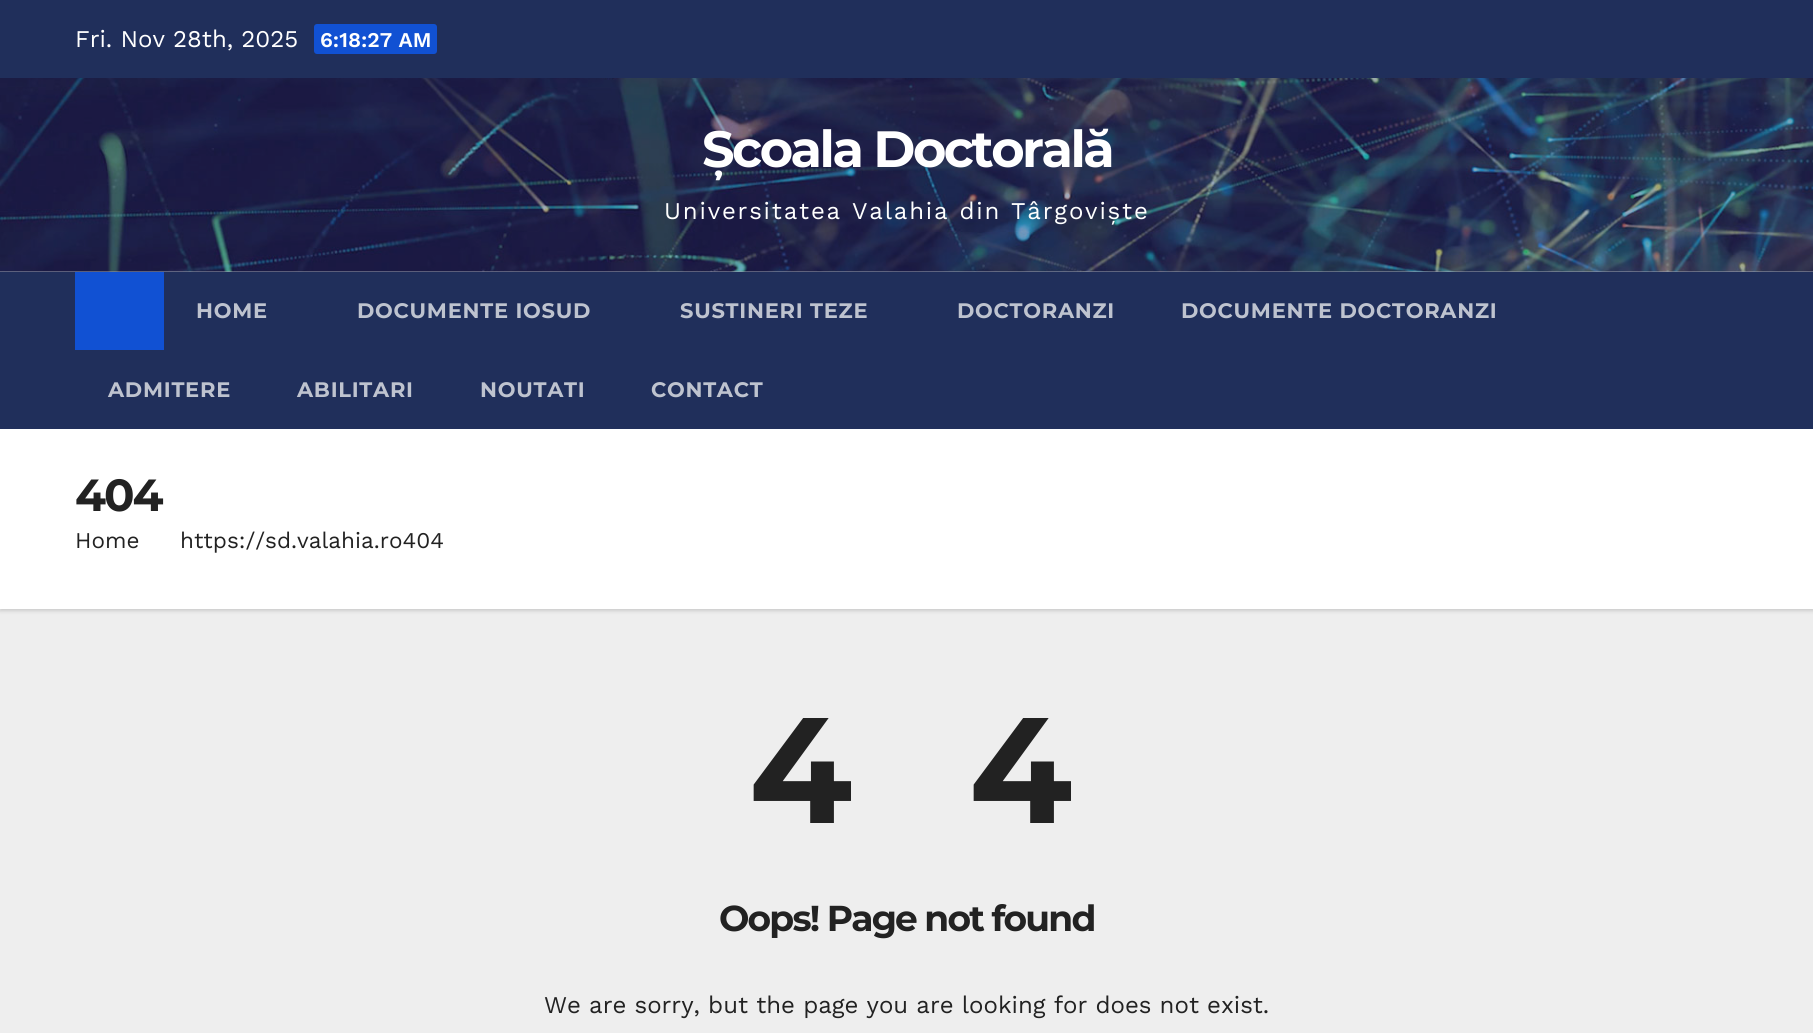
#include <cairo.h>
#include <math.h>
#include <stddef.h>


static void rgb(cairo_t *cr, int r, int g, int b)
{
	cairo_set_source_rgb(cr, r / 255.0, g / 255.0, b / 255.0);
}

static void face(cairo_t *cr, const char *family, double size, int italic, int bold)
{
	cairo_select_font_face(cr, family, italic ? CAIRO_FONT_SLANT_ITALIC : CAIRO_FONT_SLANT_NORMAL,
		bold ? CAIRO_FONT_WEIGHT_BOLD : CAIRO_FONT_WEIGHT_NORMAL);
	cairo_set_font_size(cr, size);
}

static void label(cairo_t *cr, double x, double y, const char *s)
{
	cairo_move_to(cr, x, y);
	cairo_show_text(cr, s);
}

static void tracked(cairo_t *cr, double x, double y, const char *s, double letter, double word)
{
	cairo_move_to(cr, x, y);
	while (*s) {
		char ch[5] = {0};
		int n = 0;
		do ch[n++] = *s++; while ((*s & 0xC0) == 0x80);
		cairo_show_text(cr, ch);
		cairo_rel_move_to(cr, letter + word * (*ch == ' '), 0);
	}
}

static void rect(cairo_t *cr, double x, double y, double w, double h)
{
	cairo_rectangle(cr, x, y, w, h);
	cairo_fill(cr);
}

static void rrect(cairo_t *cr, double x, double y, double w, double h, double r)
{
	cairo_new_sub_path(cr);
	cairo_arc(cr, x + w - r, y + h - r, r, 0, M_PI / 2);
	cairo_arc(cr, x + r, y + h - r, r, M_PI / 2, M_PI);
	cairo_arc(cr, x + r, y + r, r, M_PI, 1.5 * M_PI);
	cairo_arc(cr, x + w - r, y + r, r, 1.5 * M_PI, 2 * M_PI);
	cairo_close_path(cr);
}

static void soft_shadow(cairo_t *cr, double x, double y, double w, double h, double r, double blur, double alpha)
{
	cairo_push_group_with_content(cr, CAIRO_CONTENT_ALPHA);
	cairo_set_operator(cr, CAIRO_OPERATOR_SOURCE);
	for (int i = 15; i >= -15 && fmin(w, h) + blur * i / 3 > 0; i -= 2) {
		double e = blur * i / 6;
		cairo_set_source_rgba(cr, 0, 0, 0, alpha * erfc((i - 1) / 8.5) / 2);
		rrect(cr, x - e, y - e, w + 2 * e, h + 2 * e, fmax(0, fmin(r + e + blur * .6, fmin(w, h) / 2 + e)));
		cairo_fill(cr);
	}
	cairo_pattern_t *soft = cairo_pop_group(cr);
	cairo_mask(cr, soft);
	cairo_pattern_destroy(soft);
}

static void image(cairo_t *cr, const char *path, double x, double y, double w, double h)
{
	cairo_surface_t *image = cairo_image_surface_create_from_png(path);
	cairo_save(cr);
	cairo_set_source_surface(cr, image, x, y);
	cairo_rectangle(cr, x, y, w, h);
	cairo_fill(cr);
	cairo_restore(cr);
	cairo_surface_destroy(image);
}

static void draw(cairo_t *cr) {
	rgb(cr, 238, 238, 238);
	cairo_paint(cr);
	rgb(cr, 156, 162, 179);
	rect(cr, 0, 271, 1813, 1);
	rgb(cr, 32, 47, 91);
	rect(cr, 0, 0, 1813, 78);
	face(cr, "Work Sans", 24, 0, 0);
	rgb(cr, 255, 255, 255);
	label(cr, 75, 47, "Fri. Nov 28th, 2025");
	rgb(cr, 17, 81, 211);
	rrect(cr, 314, 24, 123, 30, 3);
	cairo_fill(cr);
	face(cr, "Work Sans SemiBold", 21, 0, 0);
	rgb(cr, 255, 255, 255);
	label(cr, 320, 47, "6:18:27 AM");
	image(cr, "image0.png", 0, 78, 1813, 194);
	face(cr, "Montserrat", 51, 0, 1);
	tracked(cr, 702, 167, "Școala Doctorală", -2.5, 0);
	face(cr, "Work Sans", 24, 0, 0);
	tracked(cr, 664, 219, "Universitatea Valahia din Târgoviște", 1.8, 0);
	rgb(cr, 0, 0, 0);
	soft_shadow(cr, 0, 431, 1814, 180, 0, 2, 0.15);
	rgb(cr, 32, 47, 91);
	rect(cr, 0, 272, 1813, 157);
	rgb(cr, 17, 81, 211);
	rect(cr, 75, 272, 89, 78);
	face(cr, "Montserrat", 21, 0, 1);
	rgb(cr, 190, 195, 207);
	tracked(cr, 196, 318, "HOME", 0.75, 0);
	tracked(cr, 357, 318, "DOCUMENTE IOSUD", 0.75, 0);
	tracked(cr, 680, 318, "SUSTINERI TEZE", 0.75, 0);
	tracked(cr, 957, 318, "DOCTORANZI", 0.75, 0);
	tracked(cr, 1181, 318, "DOCUMENTE DOCTORANZI", 0.75, 0);
	tracked(cr, 108, 397, "ADMITERE", 0.75, 0);
	tracked(cr, 297, 397, "ABILITARI", 0.75, 0);
	tracked(cr, 480, 397, "NOUTATI", 0.75, 0);
	tracked(cr, 651, 397, "CONTACT", 0.75, 0);
	rgb(cr, 255, 255, 255);
	rect(cr, 0, 429, 1813, 180);
	face(cr, "Montserrat", 45, 0, 1);
	rgb(cr, 34, 34, 34);
	tracked(cr, 75, 511, "404", -2, 0);
	face(cr, "Work Sans", 22.5, 0, 0);
	label(cr, 75, 548, "Home");
	label(cr, 180, 548, "https://sd.valahia.ro404");
	face(cr, "Montserrat", 150, 0, 1);
	tracked(cr, 749, 823, "4", -8, 0);
	tracked(cr, 969, 823, "4", -8, 0);
	face(cr, "Montserrat", 36, 0, 1);
	tracked(cr, 719, 931, "Oops! Page not found", -1.8, 0);
	face(cr, "Work Sans", 24, 0, 0);
	label(cr, 544, 1013, "We are sorry, but the page you are looking for does not exist.");
}

int main(void) {
	cairo_surface_t *surface = cairo_image_surface_create(CAIRO_FORMAT_RGB24, 1813, 1033);
	cairo_t *cr = cairo_create(surface);
	cairo_font_options_t *options = cairo_font_options_create();
	cairo_font_options_set_hint_metrics(options, CAIRO_HINT_METRICS_OFF);
	cairo_font_options_set_hint_style(options, CAIRO_HINT_STYLE_NONE);
	cairo_set_font_options(cr, options);
	cairo_set_miter_limit(cr, 4);
	draw(cr);
	cairo_surface_write_to_png(surface, "render.png");
	cairo_font_options_destroy(options);
	cairo_destroy(cr);
	cairo_surface_destroy(surface);
	return 0;
}
